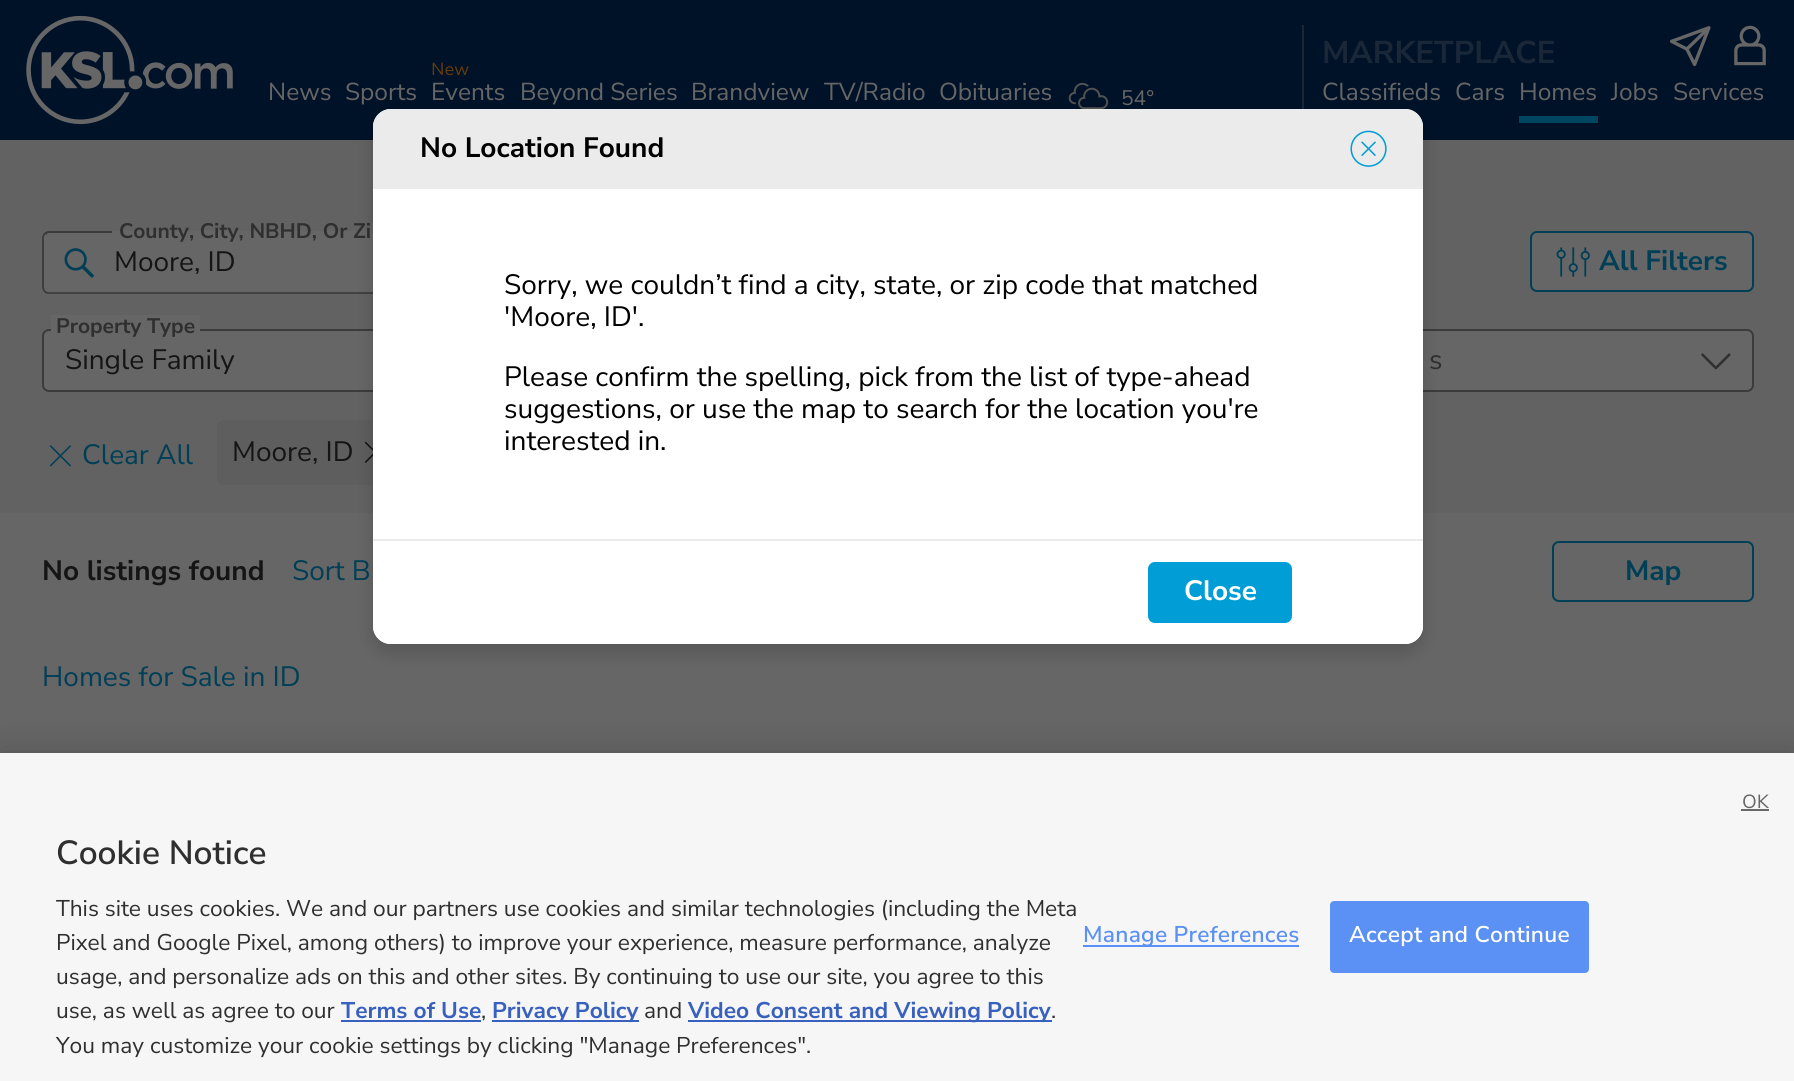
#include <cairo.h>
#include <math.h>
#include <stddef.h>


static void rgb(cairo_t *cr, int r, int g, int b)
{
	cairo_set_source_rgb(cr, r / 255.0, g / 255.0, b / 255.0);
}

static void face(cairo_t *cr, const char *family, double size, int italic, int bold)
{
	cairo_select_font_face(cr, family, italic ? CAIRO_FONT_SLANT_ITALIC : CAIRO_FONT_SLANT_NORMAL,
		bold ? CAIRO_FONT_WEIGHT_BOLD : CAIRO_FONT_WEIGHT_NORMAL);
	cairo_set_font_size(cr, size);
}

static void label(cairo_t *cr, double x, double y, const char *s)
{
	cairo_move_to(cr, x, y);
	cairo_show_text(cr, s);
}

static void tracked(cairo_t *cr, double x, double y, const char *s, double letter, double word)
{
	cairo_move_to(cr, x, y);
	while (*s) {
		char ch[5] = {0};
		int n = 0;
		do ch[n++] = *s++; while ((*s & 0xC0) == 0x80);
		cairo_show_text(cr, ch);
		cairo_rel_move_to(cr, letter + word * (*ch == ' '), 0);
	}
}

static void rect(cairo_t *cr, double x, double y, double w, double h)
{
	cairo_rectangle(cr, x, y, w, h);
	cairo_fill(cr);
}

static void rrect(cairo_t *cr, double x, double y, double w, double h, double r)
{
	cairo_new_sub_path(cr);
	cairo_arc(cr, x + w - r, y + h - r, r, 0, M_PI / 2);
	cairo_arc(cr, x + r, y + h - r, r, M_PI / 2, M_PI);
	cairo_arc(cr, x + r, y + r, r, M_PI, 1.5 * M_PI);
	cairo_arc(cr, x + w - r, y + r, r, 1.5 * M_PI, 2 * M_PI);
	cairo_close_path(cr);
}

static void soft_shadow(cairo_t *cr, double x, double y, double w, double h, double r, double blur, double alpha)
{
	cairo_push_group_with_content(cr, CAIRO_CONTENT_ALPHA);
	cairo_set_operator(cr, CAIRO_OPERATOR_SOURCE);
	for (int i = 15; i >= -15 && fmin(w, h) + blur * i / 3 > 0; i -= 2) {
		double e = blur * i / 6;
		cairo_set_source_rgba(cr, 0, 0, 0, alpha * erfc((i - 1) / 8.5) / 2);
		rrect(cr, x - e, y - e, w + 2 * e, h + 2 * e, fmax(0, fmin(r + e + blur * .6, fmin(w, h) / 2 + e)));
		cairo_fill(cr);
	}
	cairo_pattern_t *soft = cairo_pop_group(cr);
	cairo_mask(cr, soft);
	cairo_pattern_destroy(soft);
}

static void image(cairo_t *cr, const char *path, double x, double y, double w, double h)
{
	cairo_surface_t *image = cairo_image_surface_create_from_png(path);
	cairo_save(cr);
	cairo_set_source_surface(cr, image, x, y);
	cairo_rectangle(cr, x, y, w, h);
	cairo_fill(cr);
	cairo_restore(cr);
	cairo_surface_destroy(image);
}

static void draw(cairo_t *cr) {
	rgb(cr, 102, 102, 102);
	cairo_paint(cr);
	rgb(cr, 0, 18, 40);
	rect(cr, 0, 0, 1794, 140);
	image(cr, "image0.png", 26, 15, 207, 110);
	image(cr, "image1.png", 1670, 26, 41, 41);
	image(cr, "image2.png", 1734, 25, 32, 41);
	face(cr, "Nunito Sans", 24.5, 0, 0);
	rgb(cr, 102, 102, 102);
	label(cr, 268, 100, "News");
	label(cr, 345, 100, "Sports");
	face(cr, "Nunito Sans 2", 17.5, 0, 0);
	rgb(cr, 99, 59, 12);
	label(cr, 431, 75, "New");
	face(cr, "Nunito Sans", 24.5, 0, 0);
	rgb(cr, 102, 102, 102);
	label(cr, 431, 100, "Events");
	label(cr, 520, 100, "Beyond Series");
	label(cr, 691, 100, "Brandview");
	label(cr, 824, 100, "TV/Radio");
	label(cr, 939, 100, "Obituaries");
	image(cr, "image3.png", 1068, 82, 41, 27);
	face(cr, "Nunito Sans", 21, 0, 0);
	label(cr, 1121, 105, "54°");
	rgb(cr, 26, 39, 56);
	rect(cr, 1302, 25, 2, 87);
	face(cr, "Nunito Sans", 31.5, 0, 1);
	label(cr, 1322, 63, "MARKETPLACE");
	face(cr, "Nunito Sans", 24.5, 0, 0);
	rgb(cr, 102, 102, 102);
	label(cr, 1322, 100, "Classifieds");
	label(cr, 1455, 100, "Cars");
	rgb(cr, 0, 70, 96);
	rect(cr, 1519, 116, 79, 7);
	rgb(cr, 102, 102, 102);
	label(cr, 1519, 100, "Homes");
	label(cr, 1611, 100, "Jobs");
	label(cr, 1673, 100, "Services");
	rgb(cr, 98, 98, 98);
	rect(cr, 0, 140, 1794, 373);
	rgb(cr, 102, 102, 102);
	rrect(cr, 42, 231, 1278, 63, 7);
	cairo_fill(cr);
	cairo_new_path(cr);
	cairo_move_to(cr, 1317, 233.5);
	cairo_line_to(cr, 1318.5, 237);
	cairo_line_to(cr, 1318.5, 287.5);
	cairo_line_to(cr, 1317.5, 290.5);
	cairo_curve_to(cr, 1316.5, 292, 1315, 293, 1313, 293);
	cairo_line_to(cr, 48.5, 293);
	cairo_curve_to(cr, 46.5, 293, 45, 292, 44, 290.5);
	cairo_line_to(cr, 43, 287.5);
	cairo_line_to(cr, 43, 237);
	cairo_line_to(cr, 44.5, 233.5);
	rgb(cr, 59, 59, 59);
	cairo_set_line_width(cr, 1.8);
	cairo_stroke(cr);
	cairo_new_path(cr);
	cairo_move_to(cr, 49, 231);
	cairo_curve_to(cr, 47, 231, 45, 232, 44, 233);
	cairo_line_to(cr, 46, 235);
	cairo_line_to(cr, 48, 233);
	cairo_line_to(cr, 112, 233);
	cairo_line_to(cr, 112, 231);
	cairo_close_path(cr);
	cairo_fill(cr);
	face(cr, "Nunito Sans", 21, 0, 1);
	rgb(cr, 47, 47, 47);
	label(cr, 119, 238, "County, City, NBHD, Or Zi");
	image(cr, "image4.png", 64, 248, 30, 30);
	face(cr, "Nunito Sans", 28, 0, 0);
	rgb(cr, 21, 21, 21);
	label(cr, 114, 271, "Moore, ID");
	rgb(cr, 102, 102, 102);
	rrect(cr, 1531, 232, 222, 59, 6);
	cairo_fill_preserve(cr);
	rgb(cr, 0, 63, 86);
	cairo_set_line_width(cr, 2);
	cairo_stroke(cr);
	image(cr, "image5.png", 1556, 247, 34, 30);
	face(cr, "Nunito Sans", 28, 0, 1);
	label(cr, 1599, 270, "All Filters");
	rgb(cr, 102, 102, 102);
	rrect(cr, 43, 330, 406, 61, 6);
	cairo_fill_preserve(cr);
	rgb(cr, 59, 59, 59);
	cairo_stroke(cr);
	rgb(cr, 102, 102, 102);
	rect(cr, 51, 315, 149, 16);
	face(cr, "Nunito Sans", 21, 0, 1);
	rgb(cr, 47, 47, 47);
	label(cr, 56, 333, "Property Type");
	face(cr, "Nunito Sans", 28, 0, 0);
	rgb(cr, 21, 21, 21);
	label(cr, 65, 369, "Single Family");
	rgb(cr, 102, 102, 102);
	rrect(cr, 1349, 330, 404, 61, 6);
	cairo_fill_preserve(cr);
	rgb(cr, 59, 59, 59);
	cairo_stroke(cr);
	rgb(cr, 47, 47, 47);
	label(cr, 1429, 369, "s");
	image(cr, "image6.png", 1701, 353, 30, 17);
	image(cr, "image7.png", 49, 445, 22, 22);
	rgb(cr, 0, 63, 86);
	label(cr, 82, 464, "Clear All");
	rgb(cr, 94, 94, 94);
	rrect(cr, 217, 420, 186, 65, 7);
	cairo_fill(cr);
	rgb(cr, 21, 21, 21);
	label(cr, 232, 461, "Moore, ID");
	image(cr, "image8.png", 364, 441, 9, 22);
	face(cr, "Nunito Sans", 28, 0, 1);
	label(cr, 42, 580, "No listings found");
	face(cr, "Nunito Sans", 28, 0, 0);
	rgb(cr, 0, 63, 86);
	label(cr, 292, 580, "Sort B");
	rrect(cr, 1553, 542, 200, 59, 6);
	cairo_stroke(cr);
	face(cr, "Nunito Sans", 28, 0, 1);
	label(cr, 1625, 580, "Map");
	face(cr, "Nunito Sans", 28, 0, 0);
	label(cr, 42, 686, "Homes for Sale in ID");
	rgb(cr, 0, 0, 0);
	soft_shadow(cr, 373, 117, 1050, 536, 18, 9.5, 0.16);
	rgb(cr, 255, 255, 255);
	rrect(cr, 373, 109, 1050, 535, 18);
	cairo_fill(cr);
	rgb(cr, 235, 235, 235);
	cairo_new_path(cr);
	cairo_move_to(cr, 391, 109);
	cairo_line_to(cr, 1405, 109);
	cairo_curve_to(cr, 1415, 109, 1423, 117, 1423, 127);
	cairo_line_to(cr, 1423, 189);
	cairo_line_to(cr, 373, 189);
	cairo_line_to(cr, 373, 127);
	cairo_curve_to(cr, 373, 117, 381, 109, 391, 109);
	cairo_close_path(cr);
	cairo_fill(cr);
	face(cr, "Nunito Sans", 28, 0, 1);
	rgb(cr, 0, 0, 0);
	label(cr, 420, 157, "No Location Found");
	image(cr, "image9.png", 1350, 130, 37, 37);
	face(cr, "Nunito Sans", 28, 0, 0);
	label(cr, 504, 294, "Sorry, we couldn’t find a city, state, or zip code that matched");
	label(cr, 504, 326, "'Moore, ID'.");
	label(cr, 504, 386, "Please confirm the spelling, pick from the list of type-ahead");
	label(cr, 504, 418, "suggestions, or use the map to search for the location you're");
	label(cr, 504, 450, "interested in.");
	rgb(cr, 255, 255, 255);
	cairo_new_path(cr);
	cairo_move_to(cr, 373, 539);
	cairo_line_to(cr, 1423, 539);
	cairo_line_to(cr, 1423, 626);
	cairo_curve_to(cr, 1423, 636, 1415, 644, 1405, 644);
	cairo_line_to(cr, 391, 644);
	cairo_curve_to(cr, 381, 644, 373, 636, 373, 626);
	cairo_close_path(cr);
	cairo_fill(cr);
	rgb(cr, 235, 235, 235);
	rect(cr, 373, 539, 1050, 2);
	rgb(cr, 0, 157, 214);
	rrect(cr, 1148, 562, 144, 61, 7);
	cairo_fill(cr);
	face(cr, "Nunito Sans", 28, 0, 1);
	rgb(cr, 255, 255, 255);
	label(cr, 1184, 600, "Close");
	rgb(cr, 0, 0, 0);
	soft_shadow(cr, 0, 753, 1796, 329, 0, 16, 0.2);
	rgb(cr, 246, 246, 246);
	rect(cr, 0, 753, 1794, 328);
	face(cr, "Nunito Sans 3", 19, 0, 0);
	rgb(cr, 102, 102, 102);
	label(cr, 1742, 808, "OK");
	rgb(cr, 105, 105, 105);
	rect(cr, 1741, 809, 28, 2);
	face(cr, "Nunito Sans SemiBold", 33.5, 0, 0);
	rgb(cr, 47, 47, 47);
	label(cr, 56, 864, "Cookie Notice");
	face(cr, "Nunito Sans", 22.75, 0, 0);
	label(cr, 56, 916, "This site uses cookies. We and our partners use cookies and similar technologies (including the Meta");
	label(cr, 56, 950, "Pixel and Google Pixel, among others) to improve your experience, measure performance, analyze");
	label(cr, 56, 984, "usage, and personalize ads on this and other sites. By continuing to use our site, you agree to this");
	label(cr, 56, 1018, "use, as well as agree to our");
	face(cr, "Nunito Sans", 22.75, 0, 1);
	rgb(cr, 56, 96, 190);
	label(cr, 341, 1018, "Terms of Use");
	rect(cr, 341, 1020, 140, 2);
	face(cr, "Nunito Sans", 22.75, 0, 0);
	rgb(cr, 47, 47, 47);
	label(cr, 481, 1018, ",");
	rgb(cr, 56, 96, 190);
	rect(cr, 492, 1020, 147, 2);
	face(cr, "Nunito Sans", 22.75, 0, 1);
	label(cr, 492, 1018, "Privacy Policy");
	face(cr, "Nunito Sans", 22.75, 0, 0);
	rgb(cr, 47, 47, 47);
	label(cr, 644, 1018, "and");
	rgb(cr, 56, 96, 190);
	rect(cr, 688, 1020, 364, 2);
	face(cr, "Nunito Sans", 22.75, 0, 1);
	label(cr, 688, 1018, "Video Consent and Viewing Policy");
	face(cr, "Nunito Sans", 22.75, 0, 0);
	rgb(cr, 47, 47, 47);
	label(cr, 1051, 1018, ".");
	label(cr, 56, 1053, "You may customize your cookie settings by clicking \"Manage Preferences\".");
	rgb(cr, 91, 145, 244);
	rect(cr, 1083, 945, 216, 2);
	face(cr, "Nunito Sans SemiBold", 22.75, 0, 0);
	tracked(cr, 1083, 942, "Manage Preferences", 0.25, 0);
	rrect(cr, 1331, 902, 257, 70, 3);
	cairo_fill_preserve(cr);
	cairo_stroke(cr);
	rgb(cr, 255, 255, 255);
	tracked(cr, 1349, 942, "Accept and Continue", 0.25, 0);
}

int main(void) {
	cairo_surface_t *surface = cairo_image_surface_create(CAIRO_FORMAT_RGB24, 1794, 1081);
	cairo_t *cr = cairo_create(surface);
	cairo_font_options_t *options = cairo_font_options_create();
	cairo_font_options_set_hint_metrics(options, CAIRO_HINT_METRICS_OFF);
	cairo_font_options_set_hint_style(options, CAIRO_HINT_STYLE_NONE);
	cairo_set_font_options(cr, options);
	cairo_set_miter_limit(cr, 4);
	draw(cr);
	cairo_surface_write_to_png(surface, "render.png");
	cairo_font_options_destroy(options);
	cairo_destroy(cr);
	cairo_surface_destroy(surface);
	return 0;
}
